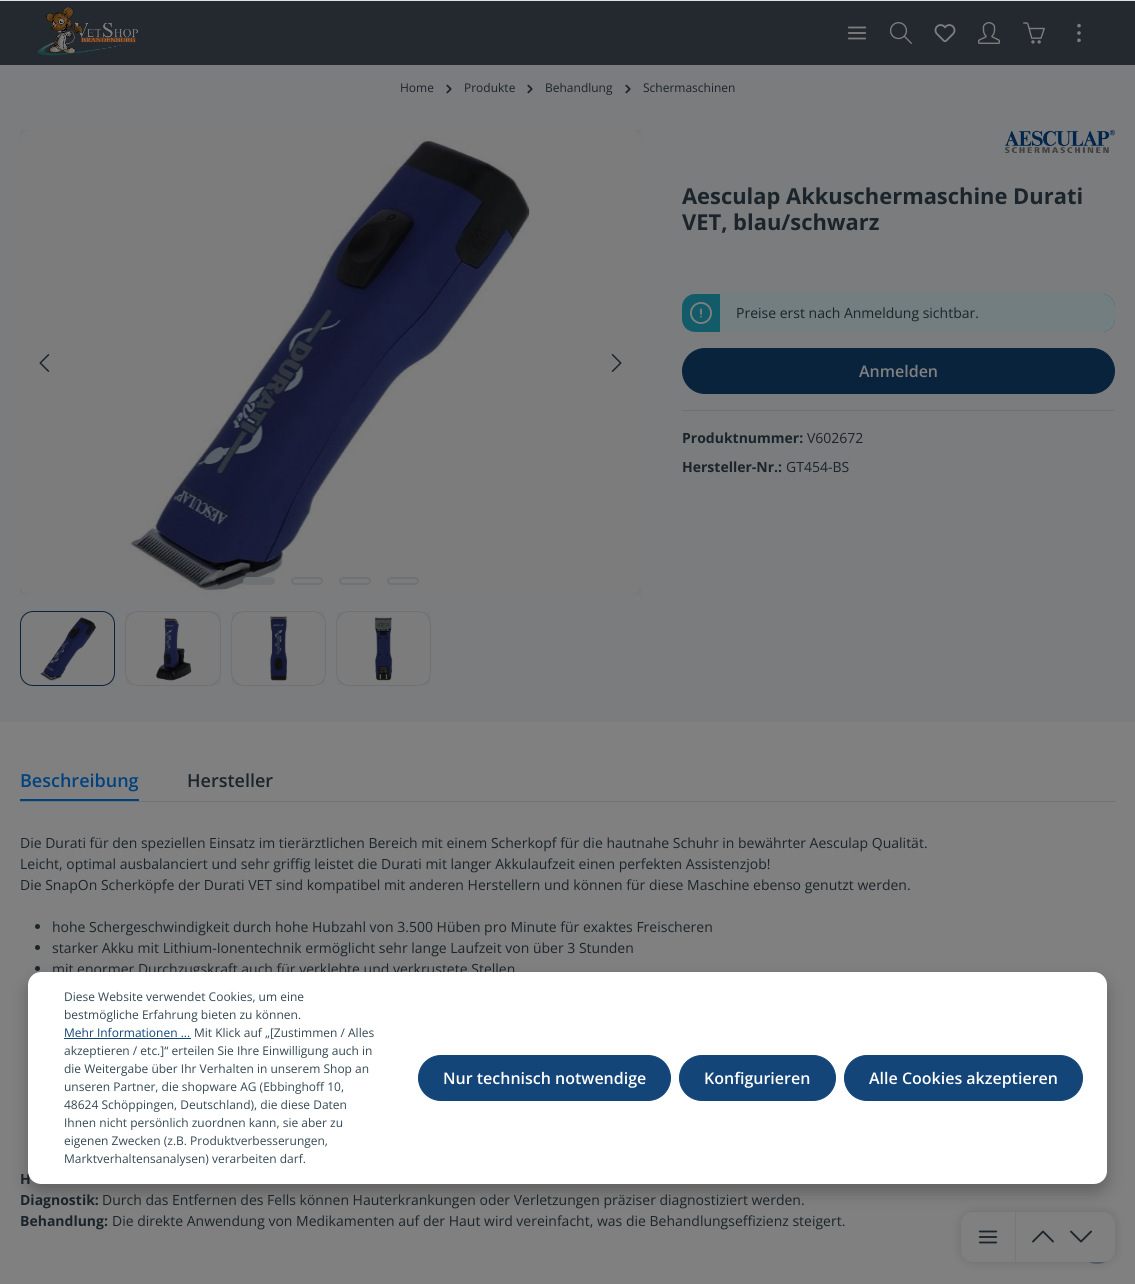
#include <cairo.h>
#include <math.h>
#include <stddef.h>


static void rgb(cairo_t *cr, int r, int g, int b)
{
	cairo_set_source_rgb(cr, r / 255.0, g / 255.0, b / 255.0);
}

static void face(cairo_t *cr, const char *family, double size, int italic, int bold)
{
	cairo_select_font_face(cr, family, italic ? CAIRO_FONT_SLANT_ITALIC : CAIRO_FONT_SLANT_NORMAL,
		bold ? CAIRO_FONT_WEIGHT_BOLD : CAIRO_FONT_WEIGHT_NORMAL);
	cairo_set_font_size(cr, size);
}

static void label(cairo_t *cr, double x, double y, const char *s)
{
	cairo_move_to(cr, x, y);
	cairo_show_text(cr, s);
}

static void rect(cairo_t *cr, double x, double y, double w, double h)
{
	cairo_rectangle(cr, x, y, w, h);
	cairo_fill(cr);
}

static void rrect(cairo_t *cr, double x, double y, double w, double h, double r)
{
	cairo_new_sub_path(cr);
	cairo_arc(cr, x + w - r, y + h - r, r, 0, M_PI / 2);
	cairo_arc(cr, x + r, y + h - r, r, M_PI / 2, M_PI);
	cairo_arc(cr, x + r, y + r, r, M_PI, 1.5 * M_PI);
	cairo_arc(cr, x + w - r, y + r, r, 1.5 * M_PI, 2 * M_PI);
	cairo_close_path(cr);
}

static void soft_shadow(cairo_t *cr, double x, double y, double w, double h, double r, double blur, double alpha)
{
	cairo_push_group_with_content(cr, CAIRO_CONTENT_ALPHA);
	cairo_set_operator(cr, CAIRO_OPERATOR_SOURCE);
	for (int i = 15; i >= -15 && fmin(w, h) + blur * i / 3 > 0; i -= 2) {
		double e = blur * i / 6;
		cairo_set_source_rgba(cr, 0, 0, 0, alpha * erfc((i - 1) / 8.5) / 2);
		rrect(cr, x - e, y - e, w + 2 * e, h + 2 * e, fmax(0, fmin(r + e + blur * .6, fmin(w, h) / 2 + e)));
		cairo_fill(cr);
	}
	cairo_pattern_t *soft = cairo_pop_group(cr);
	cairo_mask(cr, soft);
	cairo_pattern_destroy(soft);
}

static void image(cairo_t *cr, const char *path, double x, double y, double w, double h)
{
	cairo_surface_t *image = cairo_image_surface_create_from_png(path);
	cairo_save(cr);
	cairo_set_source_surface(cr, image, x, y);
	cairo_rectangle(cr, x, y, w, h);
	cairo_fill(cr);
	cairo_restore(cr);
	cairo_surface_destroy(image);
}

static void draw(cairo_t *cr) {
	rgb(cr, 123, 124, 125);
	cairo_paint(cr);
	rgb(cr, 36, 40, 47);
	rect(cr, 0, 1, 1135, 64);
	image(cr, "image0.png", 37, 7, 101, 49);
	image(cr, "image1.png", 847, 26, 20, 14);
	image(cr, "image2.png", 890, 22, 22, 22);
	image(cr, "image3.png", 934, 24, 22, 19);
	image(cr, "image4.png", 978, 22, 22, 22);
	image(cr, "image5.png", 1023, 22, 22, 22);
	image(cr, "image6.png", 1077, 23, 4, 20);
	face(cr, "Open Sans", 12, 0, 0);
	rgb(cr, 26, 36, 42);
	label(cr, 400, 92, "Home");
	image(cr, "image7.png", 446, 84, 6, 10);
	label(cr, 464, 92, "Produkte");
	image(cr, "image7.png", 527, 84, 6, 10);
	label(cr, 545, 92, "Behandlung");
	image(cr, "image7.png", 625, 84, 6, 10);
	label(cr, 643, 92, "Schermaschinen");
	rgb(cr, 128, 128, 128);
	rrect(cr, 20, 130, 621, 465, 13);
	cairo_fill(cr);
	image(cr, "image8.png", 128, 137, 403, 458);
	cairo_set_source_rgba(cr, 0, 0, 0, 0.03);
	rect(cr, 20, 130, 621, 465);
	image(cr, "image9.png", 39, 354, 11, 18);
	image(cr, "image10.png", 611, 354, 11, 18);
	rgb(cr, 111, 114, 117);
	rrect(cr, 244, 578, 30, 6, 3);
	cairo_fill_preserve(cr);
	cairo_stroke(cr);
	rrect(cr, 292, 578, 30, 6, 3);
	cairo_stroke(cr);
	rrect(cr, 340, 578, 30, 6, 3);
	cairo_stroke(cr);
	rrect(cr, 388, 578, 30, 6, 3);
	cairo_stroke(cr);
	rgb(cr, 128, 128, 128);
	rrect(cr, 20.5, 611.5, 94, 74, 12.5);
	cairo_fill_preserve(cr);
	rgb(cr, 10, 35, 61);
	cairo_set_line_width(cr, 1);
	cairo_stroke(cr);
	image(cr, "image11.png", 40, 617, 56, 64);
	cairo_set_source_rgba(cr, 0, 0, 0, 0.03);
	rect(cr, 21, 612, 93, 73);
	rgb(cr, 128, 128, 128);
	rrect(cr, 125.5, 611.5, 95, 74, 12.5);
	cairo_fill_preserve(cr);
	rgb(cr, 111, 114, 117);
	cairo_stroke(cr);
	image(cr, "image12.png", 156, 618, 36, 63);
	cairo_set_source_rgba(cr, 0, 0, 0, 0.03);
	rect(cr, 126, 612, 94, 73);
	rgb(cr, 128, 128, 128);
	rrect(cr, 231.5, 611.5, 94, 74, 12.5);
	cairo_fill_preserve(cr);
	rgb(cr, 111, 114, 117);
	cairo_stroke(cr);
	image(cr, "image13.png", 270, 616, 18, 65);
	cairo_set_source_rgba(cr, 0, 0, 0, 0.03);
	rect(cr, 232, 612, 93, 73);
	rgb(cr, 128, 128, 128);
	rrect(cr, 336.5, 611.5, 94, 74, 12.5);
	cairo_fill_preserve(cr);
	rgb(cr, 111, 114, 117);
	cairo_stroke(cr);
	image(cr, "image14.png", 374, 617, 19, 64);
	cairo_set_source_rgba(cr, 0, 0, 0, 0.03);
	rect(cr, 337, 612, 93, 73);
	image(cr, "image15.png", 1005, 130, 110, 23);
	face(cr, "Open Sans", 21.9, 0, 1);
	rgb(cr, 26, 36, 42);
	label(cr, 682, 204, "Aesculap Akkuschermaschine Durati");
	label(cr, 682, 230, "VET, blau/schwarz");
	rgb(cr, 19, 91, 104);
	rrect(cr, 682, 294, 433, 38, 13);
	cairo_fill(cr);
	image(cr, "image16.png", 690, 302, 22, 22);
	rgb(cr, 114, 126, 128);
	cairo_new_path(cr);
	cairo_move_to(cr, 720, 294);
	cairo_line_to(cr, 1102, 294);
	cairo_curve_to(cr, 1109, 294, 1115, 300, 1115, 307);
	cairo_line_to(cr, 1115, 319);
	cairo_curve_to(cr, 1115, 326, 1109, 332, 1102, 332);
	cairo_line_to(cr, 720, 332);
	cairo_close_path(cr);
	cairo_fill(cr);
	face(cr, "Open Sans", 14, 0, 0);
	rgb(cr, 26, 36, 42);
	label(cr, 736, 318, "Preise erst nach Anmeldung sichtbar.");
	rgb(cr, 10, 35, 61);
	rrect(cr, 682.5, 348.5, 432, 45, 22.5);
	cairo_fill_preserve(cr);
	cairo_stroke(cr);
	face(cr, "Open Sans SemiBold", 16, 0, 0);
	rgb(cr, 128, 128, 128);
	label(cr, 859, 377, "Anmelden");
	rgb(cr, 111, 114, 117);
	rect(cr, 682, 410, 433, 1);
	face(cr, "Open Sans", 14, 0, 1);
	rgb(cr, 26, 36, 42);
	label(cr, 682, 443, "Produktnummer:");
	face(cr, "Open Sans", 14, 0, 0);
	label(cr, 807, 443, "V602672");
	face(cr, "Open Sans", 14, 0, 1);
	label(cr, 682, 472, "Hersteller-Nr.:");
	face(cr, "Open Sans", 14, 0, 0);
	label(cr, 786, 472, "GT454-BS");
	rgb(cr, 128, 128, 128);
	rect(cr, 0, 722, 1135, 562);
	rgb(cr, 111, 114, 117);
	rect(cr, 20, 801, 1095, 1);
	rgb(cr, 0, 66, 128);
	rect(cr, 20, 799, 119, 2);
	face(cr, "Open Sans SemiBold", 18, 0, 0);
	label(cr, 20, 787, "Beschreibung");
	rgb(cr, 26, 36, 42);
	label(cr, 187, 787, "Hersteller");
	face(cr, "Open Sans", 14, 0, 0);
	label(cr, 20, 848, "Die Durati für den speziellen Einsatz im tierärztlichen Bereich mit einem Scherkopf für die hautnahe Schuhr in bewährter Aesculap Qualität.");
	label(cr, 20, 869, "Leicht, optimal ausbalanciert und sehr griffig leistet die Durati mit langer Akkulaufzeit einen perfekten Assistenzjob!");
	label(cr, 20, 890, "Die SnapOn Scherköpfe der Durati VET sind kompatibel mit anderen Herstellern und können für diese Maschine ebenso genutzt werden.");
	cairo_new_path(cr);
	cairo_arc(cr, 37.5, 926.5, 2.5, 0, 2 * M_PI);
	cairo_fill(cr);
	label(cr, 52, 932, "hohe Schergeschwindigkeit durch hohe Hubzahl von 3.500 Hüben pro Minute für exaktes Freischeren");
	cairo_new_path(cr);
	cairo_arc(cr, 37.5, 947.5, 2.5, 0, 2 * M_PI);
	cairo_fill(cr);
	label(cr, 52, 953, "starker Akku mit Lithium-Ionentechnik ermöglicht sehr lange Laufzeit von über 3 Stunden");
	cairo_new_path(cr);
	cairo_arc(cr, 37.5, 968.5, 2.5, 0, 2 * M_PI);
	cairo_fill(cr);
	label(cr, 52, 974, "mit enormer Durchzugskraft auch für verklebte und verkrustete Stellen");
	face(cr, "Open Sans", 14, 0, 1);
	label(cr, 20, 1184, "H");
	label(cr, 20, 1205, "Diagnostik:");
	face(cr, "Open Sans", 14, 0, 0);
	label(cr, 102, 1205, "Durch das Entfernen des Fells können Hauterkrankungen oder Verletzungen präziser diagnostiziert werden.");
	face(cr, "Open Sans", 14, 0, 1);
	label(cr, 20, 1226, "Behandlung:");
	face(cr, "Open Sans", 14, 0, 0);
	label(cr, 112, 1226, "Die direkte Anwendung von Medikamenten auf der Haut wird vereinfacht, was die Behandlungseffizienz steigert.");
	rgb(cr, 89, 97, 106);
	rrect(cr, 1079, 1212, 36, 52, 18);
	cairo_fill(cr);
	rgb(cr, 0, 0, 0);
	soft_shadow(cr, 961, 1212, 154, 50, 12, 5, 0.15);
	rgb(cr, 128, 128, 128);
	rrect(cr, 961, 1212, 154, 50, 12);
	cairo_fill(cr);
	rgb(cr, 117, 119, 121);
	rect(cr, 1015, 1212, 1, 50);
	image(cr, "image17.png", 978, 1230, 20, 14);
	image(cr, "image18.png", 1032, 1230, 22, 13);
	image(cr, "image19.png", 1070, 1230, 22, 13);
	rgb(cr, 222, 227, 233);
	rect(cr, 0, 0, 1135, 1);
	rgb(cr, 0, 0, 0);
	soft_shadow(cr, 28, 980, 1079, 212, 13, 8, 0.25);
	rgb(cr, 255, 255, 255);
	rrect(cr, 28, 972, 1079, 212, 13);
	cairo_fill(cr);
	face(cr, "Open Sans", 12, 0, 0);
	rgb(cr, 52, 72, 84);
	label(cr, 64, 1001, "Diese Website verwendet Cookies, um eine");
	label(cr, 64, 1019, "bestmögliche Erfahrung bieten zu können.");
	rgb(cr, 19, 69, 121);
	label(cr, 64, 1037, "Mehr Informationen ...");
	rect(cr, 64, 1038, 127, 1);
	rgb(cr, 52, 72, 84);
	label(cr, 194, 1037, "Mit Klick auf „[Zustimmen / Alles");
	label(cr, 64, 1055, "akzeptieren / etc.]“ erteilen Sie Ihre Einwilligung auch in");
	label(cr, 64, 1073, "die Weitergabe über Ihr Verhalten in unserem Shop an");
	label(cr, 64, 1091, "unseren Partner, die shopware AG (Ebbinghoff 10,");
	label(cr, 64, 1109, "48624 Schöppingen, Deutschland), die diese Daten");
	label(cr, 64, 1127, "Ihnen nicht persönlich zuordnen kann, sie aber zu");
	label(cr, 64, 1145, "eigenen Zwecken (z.B. Produktverbesserungen,");
	label(cr, 64, 1163, "Marktverhaltensanalysen) verarbeiten darf.");
	rgb(cr, 19, 69, 121);
	rrect(cr, 418.5, 1055.5, 252, 45, 22.5);
	cairo_fill_preserve(cr);
	cairo_stroke(cr);
	face(cr, "Open Sans SemiBold", 16, 0, 0);
	rgb(cr, 255, 255, 255);
	label(cr, 443, 1084, "Nur technisch notwendige");
	rgb(cr, 19, 69, 121);
	rrect(cr, 679.5, 1055.5, 156, 45, 22.5);
	cairo_fill_preserve(cr);
	cairo_stroke(cr);
	rgb(cr, 255, 255, 255);
	label(cr, 704, 1084, "Konfigurieren");
	rgb(cr, 19, 69, 121);
	rrect(cr, 844.5, 1055.5, 238, 45, 22.5);
	cairo_fill_preserve(cr);
	cairo_stroke(cr);
	rgb(cr, 255, 255, 255);
	label(cr, 869, 1084, "Alle Cookies akzeptieren");
}

int main(void) {
	cairo_surface_t *surface = cairo_image_surface_create(CAIRO_FORMAT_RGB24, 1135, 1284);
	cairo_t *cr = cairo_create(surface);
	cairo_font_options_t *options = cairo_font_options_create();
	cairo_font_options_set_hint_metrics(options, CAIRO_HINT_METRICS_OFF);
	cairo_font_options_set_hint_style(options, CAIRO_HINT_STYLE_NONE);
	cairo_set_font_options(cr, options);
	cairo_set_miter_limit(cr, 4);
	draw(cr);
	cairo_surface_write_to_png(surface, "render.png");
	cairo_font_options_destroy(options);
	cairo_destroy(cr);
	cairo_surface_destroy(surface);
	return 0;
}
